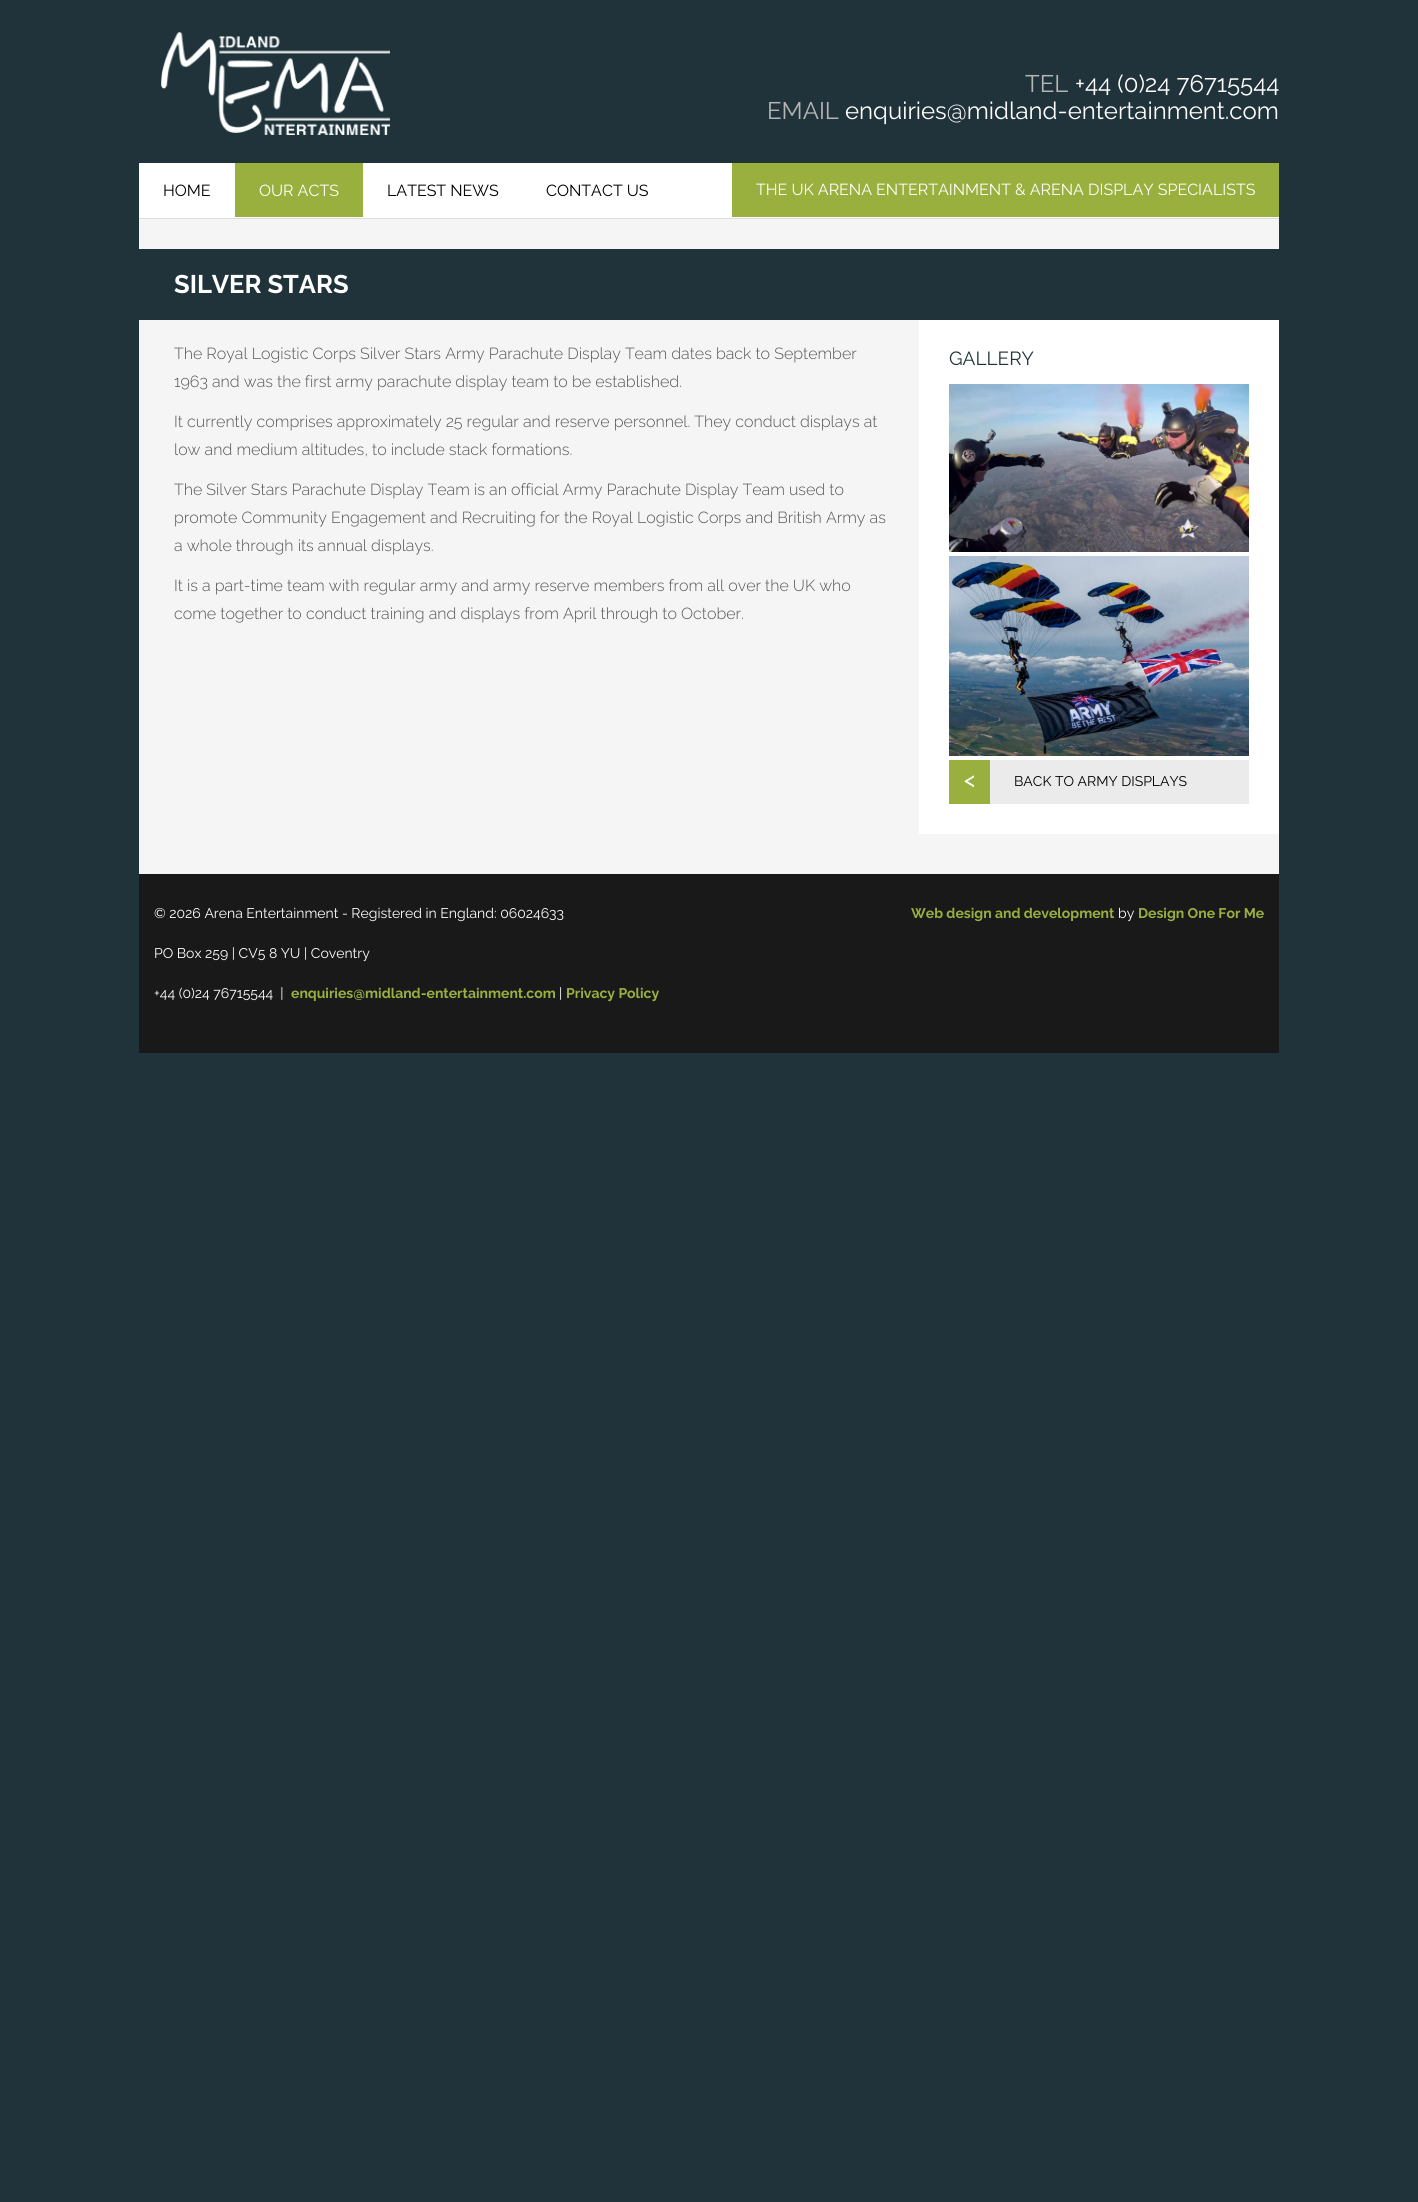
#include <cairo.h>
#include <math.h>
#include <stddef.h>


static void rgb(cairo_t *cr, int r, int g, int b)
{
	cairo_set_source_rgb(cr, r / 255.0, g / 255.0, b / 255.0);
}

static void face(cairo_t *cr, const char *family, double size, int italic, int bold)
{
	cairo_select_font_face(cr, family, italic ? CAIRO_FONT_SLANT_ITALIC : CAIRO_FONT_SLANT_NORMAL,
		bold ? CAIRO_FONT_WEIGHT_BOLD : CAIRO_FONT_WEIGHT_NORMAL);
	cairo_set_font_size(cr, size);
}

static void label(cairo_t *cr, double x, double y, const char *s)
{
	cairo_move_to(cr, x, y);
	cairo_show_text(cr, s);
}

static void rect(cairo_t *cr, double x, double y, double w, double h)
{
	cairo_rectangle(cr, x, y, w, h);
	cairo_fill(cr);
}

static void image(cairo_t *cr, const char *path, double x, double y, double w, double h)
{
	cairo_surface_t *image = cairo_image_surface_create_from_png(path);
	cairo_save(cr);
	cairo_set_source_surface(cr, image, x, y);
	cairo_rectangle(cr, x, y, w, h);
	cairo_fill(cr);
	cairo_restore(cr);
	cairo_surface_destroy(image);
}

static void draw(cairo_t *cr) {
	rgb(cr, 33, 51, 58);
	cairo_paint(cr);
	image(cr, "image0.png", 161, 32, 229, 103);
	face(cr, "Raleway", 24, 0, 0);
	rgb(cr, 181, 181, 181);
	label(cr, 1025, 92, "TEL");
	rgb(cr, 255, 255, 255);
	label(cr, 1075, 92, "+44 (0)24 76715544");
	rgb(cr, 181, 181, 181);
	label(cr, 767, 119, "EMAIL");
	rgb(cr, 255, 255, 255);
	label(cr, 845, 119, "enquiries@midland-entertainment.com");
	rect(cr, 139, 163, 1140, 55);
	face(cr, "Raleway", 16, 0, 0);
	rgb(cr, 0, 0, 0);
	label(cr, 163, 196, "HOME");
	rgb(cr, 153, 175, 62);
	rect(cr, 235, 163, 128, 54);
	rgb(cr, 255, 255, 255);
	label(cr, 259, 196, "OUR ACTS");
	rgb(cr, 0, 0, 0);
	label(cr, 387, 196, "LATEST NEWS");
	label(cr, 546, 196, "CONTACT US");
	rgb(cr, 153, 175, 62);
	rect(cr, 732, 163, 547, 54);
	rgb(cr, 255, 255, 255);
	label(cr, 756, 195, "THE UK ARENA ENTERTAINMENT & ARENA DISPLAY SPECIALISTS");
	rgb(cr, 245, 245, 245);
	rect(cr, 139, 219, 1140, 655);
	rgb(cr, 221, 221, 221);
	rect(cr, 139, 218, 1140, 1);
	rgb(cr, 33, 51, 58);
	rect(cr, 139, 249, 1140, 71);
	face(cr, "Raleway", 25.5, 0, 1);
	rgb(cr, 255, 255, 255);
	label(cr, 174, 293, "SILVER STARS");
	face(cr, "Raleway Light", 16, 0, 0);
	rgb(cr, 85, 85, 85);
	label(cr, 174, 359, "The Royal Logistic Corps Silver Stars Army Parachute Display Team dates back to September");
	label(cr, 174, 387, "1963 and was the first army parachute display team to be established.");
	label(cr, 174, 427, "It currently comprises approximately 25 regular and reserve personnel. They conduct displays at");
	label(cr, 174, 455, "low and medium altitudes, to include stack formations.");
	label(cr, 174, 495, "The Silver Stars Parachute Display Team is an official Army Parachute Display Team used to");
	label(cr, 174, 523, "promote Community Engagement and Recruiting for the Royal Logistic Corps and British Army as");
	label(cr, 174, 551, "a whole through its annual displays.");
	label(cr, 174, 591, "It is a part-time team with regular army and army reserve members from all over the UK who");
	label(cr, 174, 619, "come together to conduct training and displays from April through to October.");
	rgb(cr, 255, 255, 255);
	rect(cr, 919, 320, 360, 514);
	face(cr, "Raleway", 19, 0, 0);
	rgb(cr, 33, 51, 58);
	label(cr, 949, 365, "GALLERY");
	image(cr, "image1.png", 949, 384, 300, 168);
	image(cr, "image2.png", 949, 556, 300, 200);
	rgb(cr, 235, 235, 235);
	rect(cr, 990, 760, 259, 44);
	rgb(cr, 153, 175, 62);
	rect(cr, 949, 760, 41, 44);
	face(cr, "Raleway Medium", 22, 0, 0);
	rgb(cr, 255, 255, 255);
	label(cr, 964, 787, "<");
	face(cr, "Raleway", 14, 0, 0);
	rgb(cr, 0, 0, 0);
	label(cr, 1014, 786, "BACK TO ARMY DISPLAYS");
	rgb(cr, 25, 25, 25);
	rect(cr, 139, 874, 1140, 179);
	rgb(cr, 255, 255, 255);
	label(cr, 154, 918, "© 2026 Arena Entertainment - Registered in England: 06024633");
	label(cr, 154, 958, "PO Box 259 | CV5 8 YU | Coventry");
	label(cr, 154, 998, "+44 (0)24 76715544  |");
	face(cr, "Raleway", 14, 0, 1);
	rgb(cr, 153, 175, 62);
	label(cr, 291, 998, "enquiries@midland-entertainment.com");
	face(cr, "Raleway", 14, 0, 0);
	rgb(cr, 255, 255, 255);
	label(cr, 559, 998, "|");
	face(cr, "Raleway", 14, 0, 1);
	rgb(cr, 153, 175, 62);
	label(cr, 566, 998, "Privacy Policy");
	label(cr, 911, 918, "Web design and development");
	face(cr, "Raleway", 14, 0, 0);
	rgb(cr, 255, 255, 255);
	label(cr, 1118, 918, "by");
	face(cr, "Raleway", 14, 0, 1);
	rgb(cr, 153, 175, 62);
	label(cr, 1138, 918, "Design One For Me");
}

int main(void) {
	cairo_surface_t *surface = cairo_image_surface_create(CAIRO_FORMAT_RGB24, 1418, 2202);
	cairo_t *cr = cairo_create(surface);
	cairo_font_options_t *options = cairo_font_options_create();
	cairo_font_options_set_hint_metrics(options, CAIRO_HINT_METRICS_OFF);
	cairo_font_options_set_hint_style(options, CAIRO_HINT_STYLE_NONE);
	cairo_set_font_options(cr, options);
	cairo_set_miter_limit(cr, 4);
	draw(cr);
	cairo_surface_write_to_png(surface, "render.png");
	cairo_font_options_destroy(options);
	cairo_destroy(cr);
	cairo_surface_destroy(surface);
	return 0;
}
